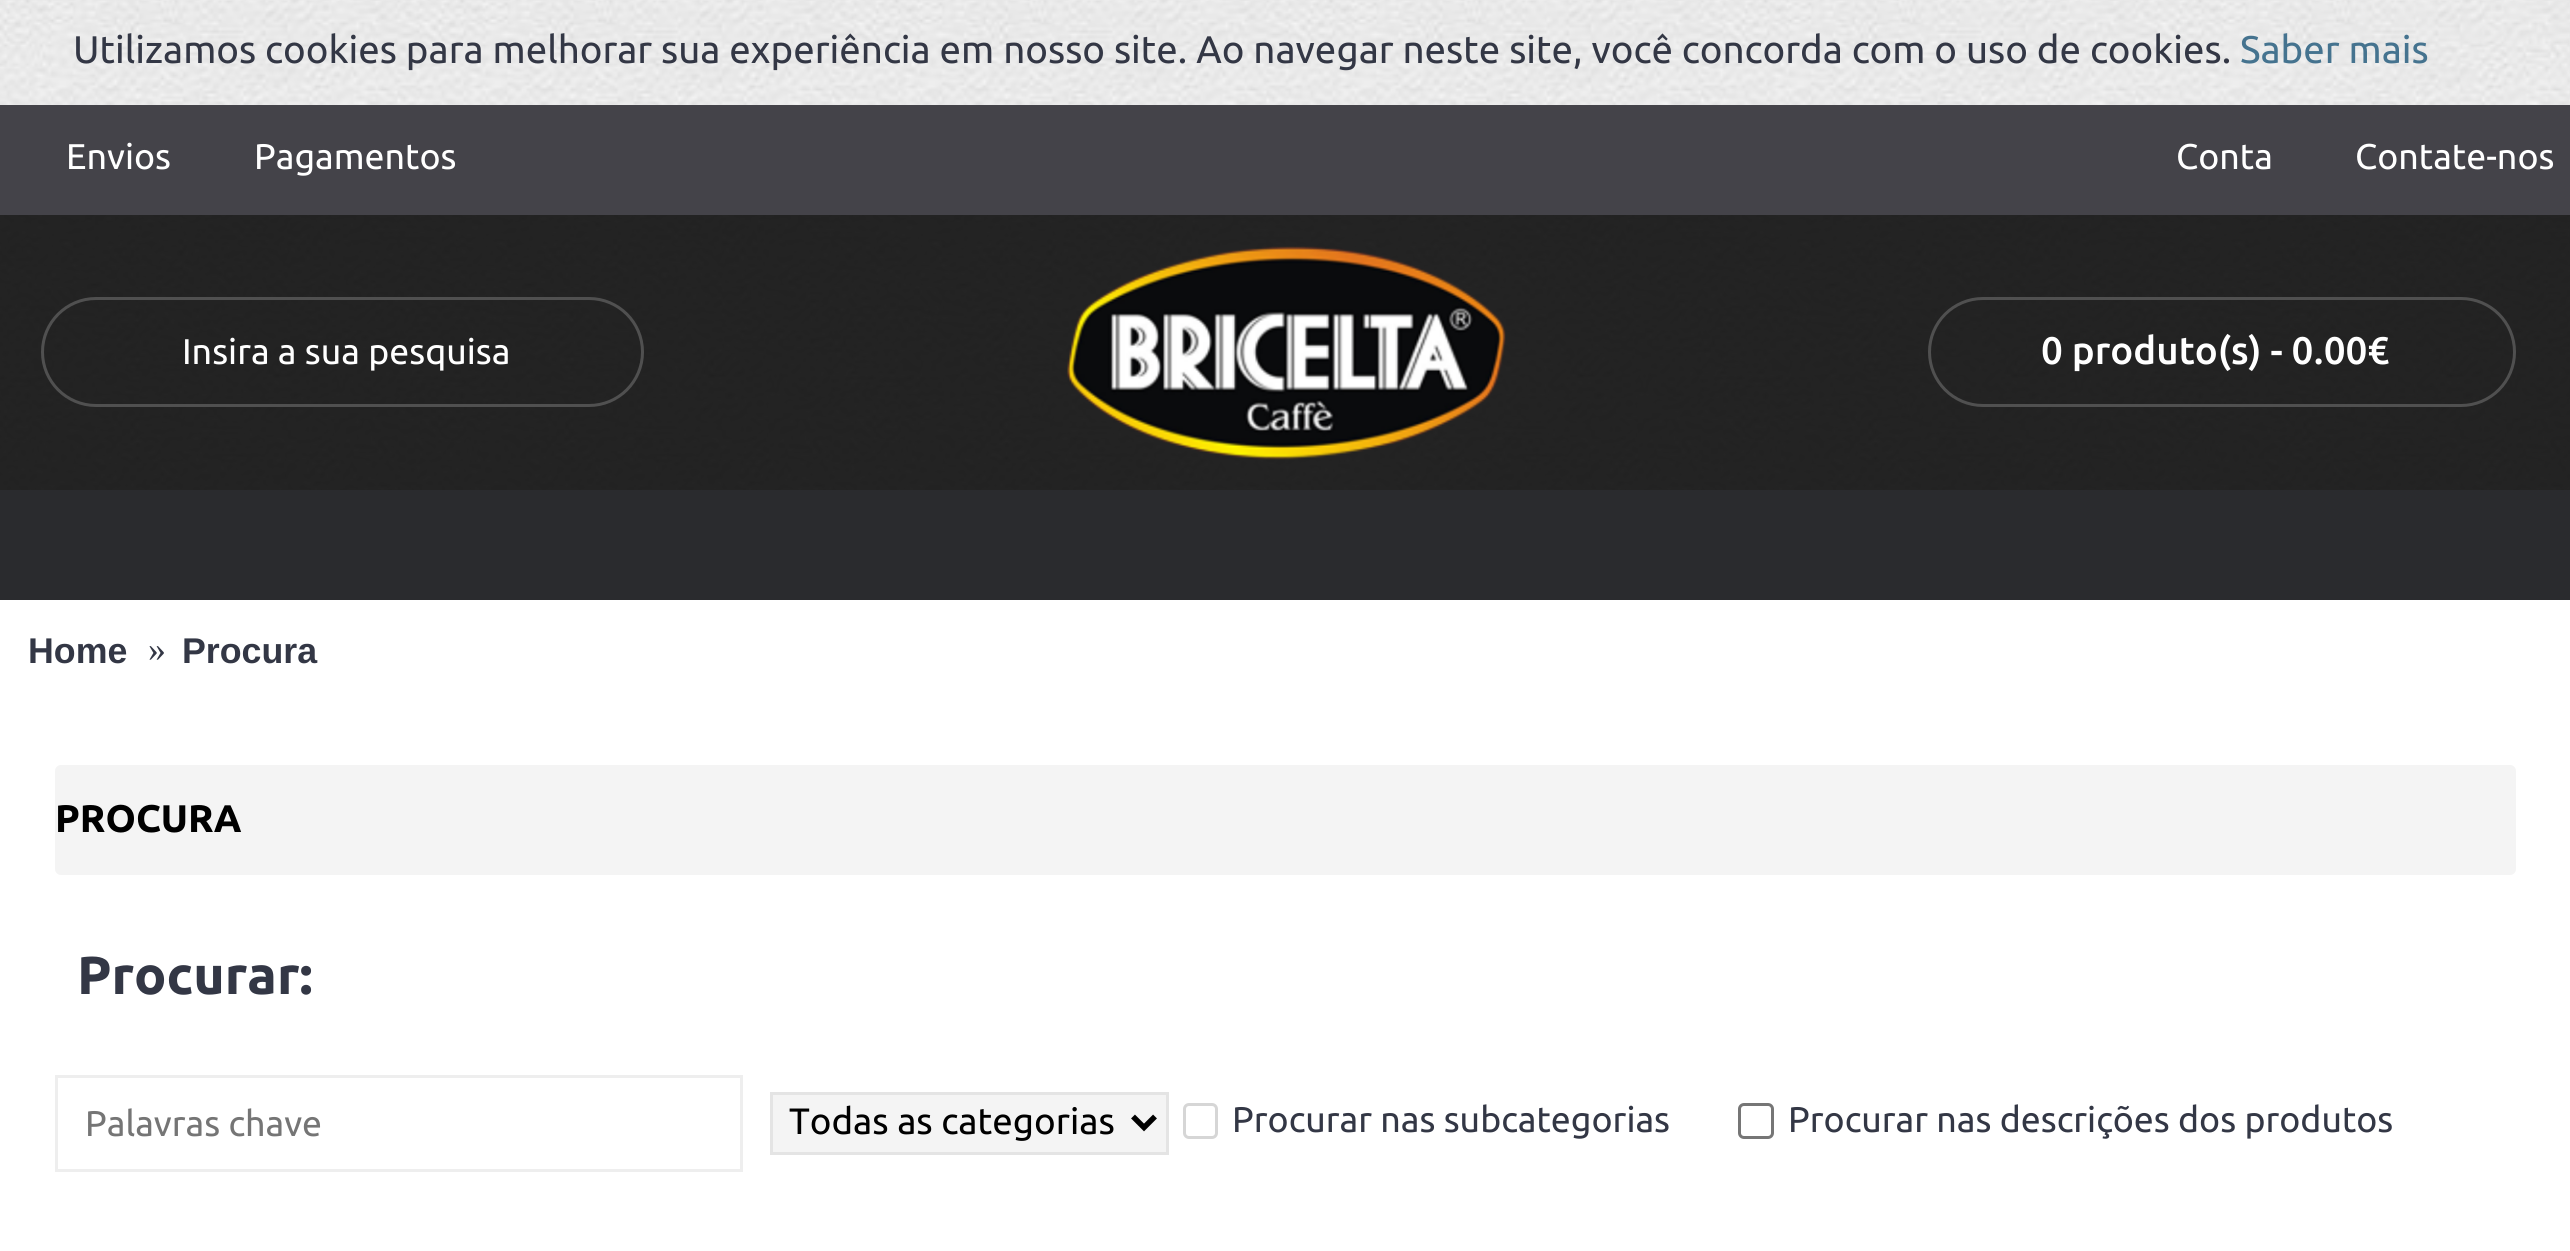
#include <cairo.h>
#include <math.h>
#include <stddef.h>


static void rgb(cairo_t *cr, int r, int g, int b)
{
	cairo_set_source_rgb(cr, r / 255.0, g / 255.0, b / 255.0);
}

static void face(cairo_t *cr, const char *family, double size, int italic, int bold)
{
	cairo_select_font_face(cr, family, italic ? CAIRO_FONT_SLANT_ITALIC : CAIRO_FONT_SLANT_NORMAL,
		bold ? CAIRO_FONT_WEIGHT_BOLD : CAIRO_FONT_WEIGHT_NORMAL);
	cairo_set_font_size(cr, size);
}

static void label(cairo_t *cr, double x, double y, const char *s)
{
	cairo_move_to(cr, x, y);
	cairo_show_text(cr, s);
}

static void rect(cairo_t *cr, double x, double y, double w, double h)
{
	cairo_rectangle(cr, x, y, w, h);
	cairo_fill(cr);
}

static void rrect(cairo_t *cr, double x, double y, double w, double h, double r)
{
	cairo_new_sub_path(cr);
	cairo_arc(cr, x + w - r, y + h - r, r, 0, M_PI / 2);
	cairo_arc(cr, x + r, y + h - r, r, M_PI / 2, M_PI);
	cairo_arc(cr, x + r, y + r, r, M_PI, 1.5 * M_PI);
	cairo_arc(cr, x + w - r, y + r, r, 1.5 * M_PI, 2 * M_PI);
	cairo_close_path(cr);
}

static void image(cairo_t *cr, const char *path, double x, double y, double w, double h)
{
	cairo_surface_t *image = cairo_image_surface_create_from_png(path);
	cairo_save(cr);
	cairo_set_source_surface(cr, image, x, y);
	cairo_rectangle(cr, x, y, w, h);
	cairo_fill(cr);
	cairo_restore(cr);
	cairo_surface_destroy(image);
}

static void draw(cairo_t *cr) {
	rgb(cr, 255, 255, 255);
	cairo_paint(cr);
	image(cr, "image0.png", 0, 0, 2570, 490);
	face(cr, "Ubuntu", 38.5, 0, 0);
	rgb(cr, 51, 55, 69);
	label(cr, 73, 63, "Utilizamos cookies para melhorar sua experiência em nosso site. Ao navegar neste site, você concorda com o uso de cookies.");
	rgb(cr, 69, 115, 143);
	label(cr, 2240, 63, "Saber mais");
	cairo_set_source_rgba(cr, 0, 0, 0, 0.85);
	rect(cr, 0, 215, 2570, 275);
	rgb(cr, 68, 67, 73);
	rect(cr, 0, 105, 2570, 110);
	face(cr, "Ubuntu", 35.75, 0, 0);
	rgb(cr, 255, 255, 255);
	label(cr, 66, 169, "Envios");
	label(cr, 254, 169, "Pagamentos");
	label(cr, 2176, 169, "Conta");
	label(cr, 2355, 169, "Contate-nos");
	rrect(cr, 42.5, 298.5, 600, 107, 53.5);
	rgb(cr, 80, 80, 80);
	cairo_set_line_width(cr, 3);
	cairo_stroke(cr);
	rgb(cr, 255, 255, 255);
	label(cr, 182, 364, "Insira a sua pesquisa");
	image(cr, "image1.png", 1067, 246, 439, 214);
	rrect(cr, 1929.5, 298.5, 585, 107, 53.5);
	rgb(cr, 80, 80, 80);
	cairo_stroke(cr);
	face(cr, "Ubuntu Medium", 38.5, 0, 0);
	rgb(cr, 255, 255, 255);
	label(cr, 2041, 364, "0 produto(s) - 0.00€");
	rgb(cr, 42, 43, 46);
	rect(cr, 0, 490, 2570, 110);
	face(cr, "Liberation Sans", 35.75, 0, 1);
	rgb(cr, 51, 55, 69);
	label(cr, 28, 663, "Home");
	face(cr, "Liberation Serif", 35.75, 0, 0);
	label(cr, 148, 661, "»");
	face(cr, "Liberation Sans", 35.75, 0, 1);
	label(cr, 182, 663, "Procura");
	rgb(cr, 244, 244, 244);
	rrect(cr, 55, 765, 2461, 110, 6);
	cairo_fill(cr);
	face(cr, "Ubuntu", 38.5, 0, 1);
	rgb(cr, 0, 0, 0);
	label(cr, 55, 832, "PROCURA");
	face(cr, "Ubuntu", 53.5, 0, 1);
	rgb(cr, 51, 55, 69);
	label(cr, 77, 994, "Procurar:");
	cairo_rectangle(cr, 56.5, 1076.5, 685, 94);
	rgb(cr, 238, 238, 238);
	cairo_stroke(cr);
	face(cr, "Ubuntu", 35.75, 0, 0);
	rgb(cr, 117, 117, 117);
	label(cr, 85, 1136, "Palavras chave");
	rgb(cr, 244, 244, 244);
	cairo_rectangle(cr, 771.5, 1093.5, 396, 60);
	cairo_fill_preserve(cr);
	rgb(cr, 228, 228, 228);
	cairo_stroke(cr);
	cairo_new_path(cr);
	cairo_move_to(cr, 1133, 1116.5);
	cairo_line_to(cr, 1144, 1127.5);
	cairo_line_to(cr, 1155, 1116.5);
	rgb(cr, 0, 0, 0);
	cairo_set_line_width(cr, 5.5);
	cairo_stroke(cr);
	face(cr, "Ubuntu", 36.75, 0, 0);
	label(cr, 789, 1134, "Todas as categorias");
	rrect(cr, 1184.5, 1104.5, 32, 33, 4.5);
	rgb(cr, 214, 214, 214);
	cairo_set_line_width(cr, 3);
	cairo_stroke(cr);
	face(cr, "Ubuntu", 35.75, 0, 0);
	rgb(cr, 51, 55, 69);
	label(cr, 1232, 1132, "Procurar nas subcategorias");
	rrect(cr, 1739.5, 1104.5, 33, 33, 4.5);
	rgb(cr, 118, 118, 118);
	cairo_stroke(cr);
	rgb(cr, 51, 55, 69);
	label(cr, 1788, 1132, "Procurar nas descrições dos produtos");
}

int main(void) {
	cairo_surface_t *surface = cairo_image_surface_create(CAIRO_FORMAT_RGB24, 2570, 1251);
	cairo_t *cr = cairo_create(surface);
	cairo_font_options_t *options = cairo_font_options_create();
	cairo_font_options_set_hint_metrics(options, CAIRO_HINT_METRICS_OFF);
	cairo_font_options_set_hint_style(options, CAIRO_HINT_STYLE_NONE);
	cairo_set_font_options(cr, options);
	cairo_set_miter_limit(cr, 4);
	draw(cr);
	cairo_surface_write_to_png(surface, "render.png");
	cairo_font_options_destroy(options);
	cairo_destroy(cr);
	cairo_surface_destroy(surface);
	return 0;
}
